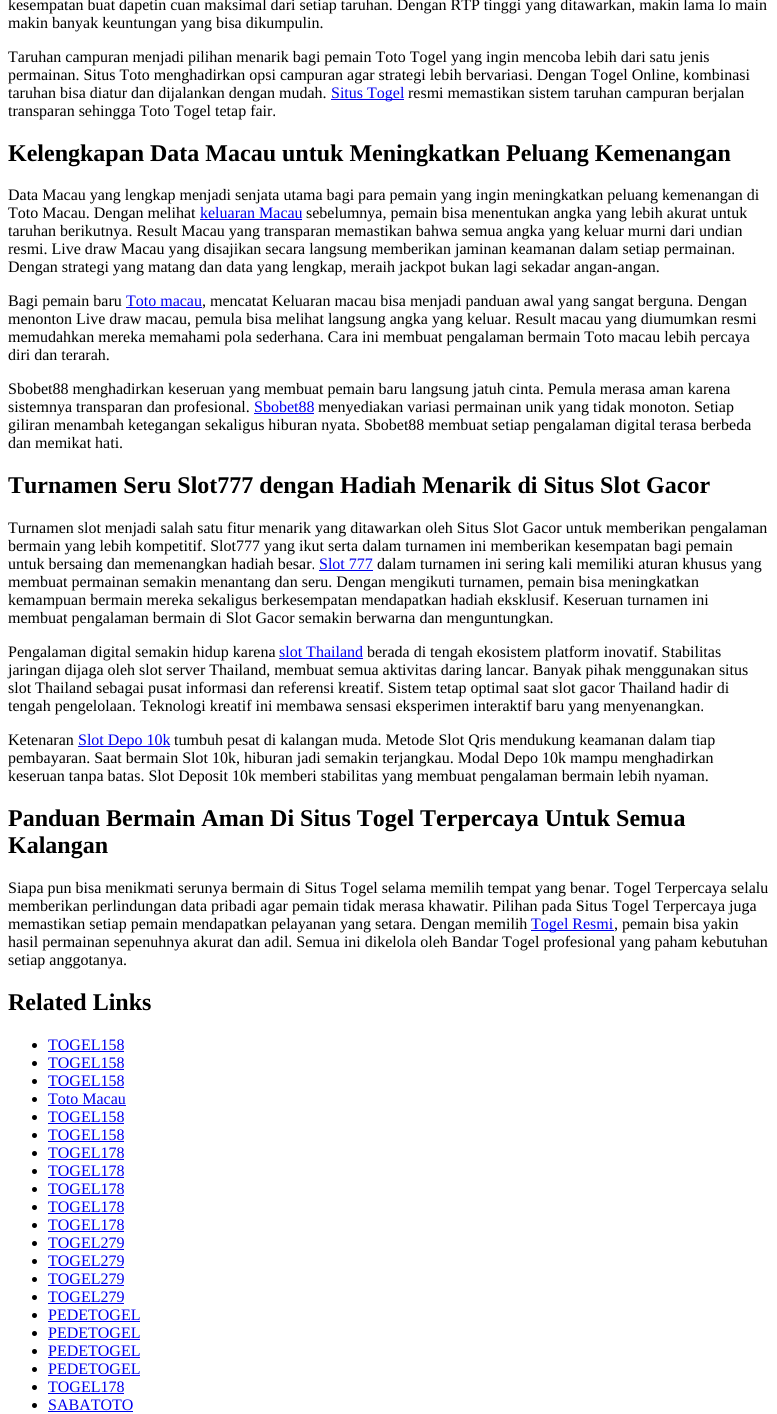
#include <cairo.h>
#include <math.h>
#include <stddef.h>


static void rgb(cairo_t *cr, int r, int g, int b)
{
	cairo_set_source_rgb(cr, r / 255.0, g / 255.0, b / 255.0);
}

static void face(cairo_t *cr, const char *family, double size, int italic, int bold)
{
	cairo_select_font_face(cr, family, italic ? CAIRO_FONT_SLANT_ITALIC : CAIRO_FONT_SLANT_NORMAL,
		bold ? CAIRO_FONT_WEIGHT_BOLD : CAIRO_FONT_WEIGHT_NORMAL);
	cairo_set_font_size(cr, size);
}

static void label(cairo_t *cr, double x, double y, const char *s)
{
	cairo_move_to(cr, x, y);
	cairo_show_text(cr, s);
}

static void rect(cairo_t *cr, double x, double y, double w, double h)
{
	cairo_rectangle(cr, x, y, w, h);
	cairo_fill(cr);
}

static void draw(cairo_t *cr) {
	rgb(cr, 255, 255, 255);
	cairo_paint(cr);
	face(cr, "Liberation Serif", 16, 0, 0);
	rgb(cr, 0, 0, 0);
	label(cr, 8, 10, "kesempatan buat dapetin cuan maksimal dari setiap taruhan. Dengan RTP tinggi yang ditawarkan, makin lama lo main");
	label(cr, 8, 28, "makin banyak keuntungan yang bisa dikumpulin.");
	label(cr, 8, 62, "Taruhan campuran menjadi pilihan menarik bagi pemain Toto Togel yang ingin mencoba lebih dari satu jenis");
	label(cr, 8, 80, "permainan. Situs Toto menghadirkan opsi campuran agar strategi lebih bervariasi. Dengan Togel Online, kombinasi");
	label(cr, 8, 98, "taruhan bisa diatur dan dijalankan dengan mudah.");
	rgb(cr, 0, 0, 238);
	rect(cr, 331, 99, 73, 1);
	label(cr, 331, 98, "Situs Togel");
	rgb(cr, 0, 0, 0);
	label(cr, 408, 98, "resmi memastikan sistem taruhan campuran berjalan");
	label(cr, 8, 116, "transparan sehingga Toto Togel tetap fair.");
	face(cr, "Liberation Serif", 24, 0, 1);
	label(cr, 8, 161, "Kelengkapan Data Macau untuk Meningkatkan Peluang Kemenangan");
	face(cr, "Liberation Serif", 16, 0, 0);
	label(cr, 8, 200, "Data Macau yang lengkap menjadi senjata utama bagi para pemain yang ingin meningkatkan peluang kemenangan di");
	label(cr, 8, 218, "Toto Macau. Dengan melihat");
	rgb(cr, 0, 0, 238);
	label(cr, 200, 218, "keluaran Macau");
	rect(cr, 200, 219, 102, 1);
	rgb(cr, 0, 0, 0);
	label(cr, 306, 218, "sebelumnya, pemain bisa menentukan angka yang lebih akurat untuk");
	label(cr, 8, 236, "taruhan berikutnya. Result Macau yang transparan memastikan bahwa semua angka yang keluar murni dari undian");
	label(cr, 8, 254, "resmi. Live draw Macau yang disajikan secara langsung memberikan jaminan keamanan dalam setiap permainan.");
	label(cr, 8, 272, "Dengan strategi yang matang dan data yang lengkap, meraih jackpot bukan lagi sekadar angan-angan.");
	label(cr, 8, 306, "Bagi pemain baru");
	rgb(cr, 0, 0, 238);
	label(cr, 126, 306, "Toto macau");
	rect(cr, 126, 307, 76, 1);
	rgb(cr, 0, 0, 0);
	label(cr, 202, 306, ", mencatat Keluaran macau bisa menjadi panduan awal yang sangat berguna. Dengan");
	label(cr, 8, 324, "menonton Live draw macau, pemula bisa melihat langsung angka yang keluar. Result macau yang diumumkan resmi");
	label(cr, 8, 342, "memudahkan mereka memahami pola sederhana. Cara ini membuat pengalaman bermain Toto macau lebih percaya");
	label(cr, 8, 360, "diri dan terarah.");
	label(cr, 8, 394, "Sbobet88 menghadirkan keseruan yang membuat pemain baru langsung jatuh cinta. Pemula merasa aman karena");
	label(cr, 8, 412, "sistemnya transparan dan profesional.");
	rgb(cr, 0, 0, 238);
	label(cr, 254, 412, "Sbobet88");
	rect(cr, 254, 413, 60, 1);
	rgb(cr, 0, 0, 0);
	label(cr, 318, 412, "menyediakan variasi permainan unik yang tidak monoton. Setiap");
	label(cr, 8, 430, "giliran menambah ketegangan sekaligus hiburan nyata. Sbobet88 membuat setiap pengalaman digital terasa berbeda");
	label(cr, 8, 448, "dan memikat hati.");
	face(cr, "Liberation Serif", 24, 0, 1);
	label(cr, 8, 493, "Turnamen Seru Slot777 dengan Hadiah Menarik di Situs Slot Gacor");
	face(cr, "Liberation Serif", 16, 0, 0);
	label(cr, 8, 533, "Turnamen slot menjadi salah satu fitur menarik yang ditawarkan oleh Situs Slot Gacor untuk memberikan pengalaman");
	label(cr, 8, 551, "bermain yang lebih kompetitif. Slot777 yang ikut serta dalam turnamen ini memberikan kesempatan bagi pemain");
	label(cr, 8, 569, "untuk bersaing dan memenangkan hadiah besar.");
	rgb(cr, 0, 0, 238);
	label(cr, 319, 569, "Slot 777");
	rect(cr, 319, 570, 54, 1);
	rgb(cr, 0, 0, 0);
	label(cr, 377, 569, "dalam turnamen ini sering kali memiliki aturan khusus yang");
	label(cr, 8, 587, "membuat permainan semakin menantang dan seru. Dengan mengikuti turnamen, pemain bisa meningkatkan");
	label(cr, 8, 605, "kemampuan bermain mereka sekaligus berkesempatan mendapatkan hadiah eksklusif. Keseruan turnamen ini");
	label(cr, 8, 623, "membuat pengalaman bermain di Slot Gacor semakin berwarna dan menguntungkan.");
	label(cr, 8, 657, "Pengalaman digital semakin hidup karena");
	rgb(cr, 0, 0, 238);
	label(cr, 279, 657, "slot Thailand");
	rect(cr, 279, 658, 84, 1);
	rgb(cr, 0, 0, 0);
	label(cr, 367, 657, "berada di tengah ekosistem platform inovatif. Stabilitas");
	label(cr, 8, 675, "jaringan dijaga oleh slot server Thailand, membuat semua aktivitas daring lancar. Banyak pihak menggunakan situs");
	label(cr, 8, 693, "slot Thailand sebagai pusat informasi dan referensi kreatif. Sistem tetap optimal saat slot gacor Thailand hadir di");
	label(cr, 8, 711, "tengah pengelolaan. Teknologi kreatif ini membawa sensasi eksperimen interaktif baru yang menyenangkan.");
	label(cr, 8, 745, "Ketenaran");
	rgb(cr, 0, 0, 238);
	rect(cr, 78, 746, 92, 1);
	label(cr, 78, 745, "Slot Depo 10k");
	rgb(cr, 0, 0, 0);
	label(cr, 174, 745, "tumbuh pesat di kalangan muda. Metode Slot Qris mendukung keamanan dalam tiap");
	label(cr, 8, 763, "pembayaran. Saat bermain Slot 10k, hiburan jadi semakin terjangkau. Modal Depo 10k mampu menghadirkan");
	label(cr, 8, 781, "keseruan tanpa batas. Slot Deposit 10k memberi stabilitas yang membuat pengalaman bermain lebih nyaman.");
	face(cr, "Liberation Serif", 24, 0, 1);
	label(cr, 8, 826, "Panduan Bermain Aman Di Situs Togel Terpercaya Untuk Semua");
	label(cr, 8, 853, "Kalangan");
	face(cr, "Liberation Serif", 16, 0, 0);
	label(cr, 8, 893, "Siapa pun bisa menikmati serunya bermain di Situs Togel selama memilih tempat yang benar. Togel Terpercaya selalu");
	label(cr, 8, 911, "memberikan perlindungan data pribadi agar pemain tidak merasa khawatir. Pilihan pada Situs Togel Terpercaya juga");
	label(cr, 8, 929, "memastikan setiap pemain mendapatkan pelayanan yang setara. Dengan memilih");
	rgb(cr, 0, 0, 238);
	rect(cr, 531, 930, 83, 1);
	label(cr, 531, 929, "Togel Resmi");
	rgb(cr, 0, 0, 0);
	label(cr, 614, 929, ", pemain bisa yakin");
	label(cr, 8, 947, "hasil permainan sepenuhnya akurat dan adil. Semua ini dikelola oleh Bandar Togel profesional yang paham kebutuhan");
	label(cr, 8, 965, "setiap anggotanya.");
	face(cr, "Liberation Serif", 24, 0, 1);
	label(cr, 8, 1010, "Related Links");
	cairo_new_path(cr);
	cairo_arc(cr, 34.5, 1045.5, 2.5, 0, 2 * M_PI);
	cairo_fill(cr);
	face(cr, "Liberation Serif", 16, 0, 0);
	rgb(cr, 0, 0, 238);
	label(cr, 48, 1050, "TOGEL158");
	rect(cr, 48, 1051, 76, 1);
	rgb(cr, 0, 0, 0);
	cairo_new_path(cr);
	cairo_arc(cr, 34.5, 1063.5, 2.5, 0, 2 * M_PI);
	cairo_fill(cr);
	rgb(cr, 0, 0, 238);
	label(cr, 48, 1068, "TOGEL158");
	rect(cr, 48, 1069, 76, 1);
	rgb(cr, 0, 0, 0);
	cairo_new_path(cr);
	cairo_arc(cr, 34.5, 1081.5, 2.5, 0, 2 * M_PI);
	cairo_fill(cr);
	rgb(cr, 0, 0, 238);
	label(cr, 48, 1086, "TOGEL158");
	rect(cr, 48, 1087, 76, 1);
	rgb(cr, 0, 0, 0);
	cairo_new_path(cr);
	cairo_arc(cr, 34.5, 1099.5, 2.5, 0, 2 * M_PI);
	cairo_fill(cr);
	rgb(cr, 0, 0, 238);
	label(cr, 48, 1104, "Toto Macau");
	rect(cr, 48, 1105, 78, 1);
	rgb(cr, 0, 0, 0);
	cairo_new_path(cr);
	cairo_arc(cr, 34.5, 1117.5, 2.5, 0, 2 * M_PI);
	cairo_fill(cr);
	rgb(cr, 0, 0, 238);
	label(cr, 48, 1122, "TOGEL158");
	rect(cr, 48, 1123, 76, 1);
	rgb(cr, 0, 0, 0);
	cairo_new_path(cr);
	cairo_arc(cr, 34.5, 1135.5, 2.5, 0, 2 * M_PI);
	cairo_fill(cr);
	rgb(cr, 0, 0, 238);
	label(cr, 48, 1140, "TOGEL158");
	rect(cr, 48, 1141, 76, 1);
	rgb(cr, 0, 0, 0);
	cairo_new_path(cr);
	cairo_arc(cr, 34.5, 1153.5, 2.5, 0, 2 * M_PI);
	cairo_fill(cr);
	rgb(cr, 0, 0, 238);
	label(cr, 48, 1158, "TOGEL178");
	rect(cr, 48, 1159, 76, 1);
	rgb(cr, 0, 0, 0);
	cairo_new_path(cr);
	cairo_arc(cr, 34.5, 1171.5, 2.5, 0, 2 * M_PI);
	cairo_fill(cr);
	rgb(cr, 0, 0, 238);
	label(cr, 48, 1176, "TOGEL178");
	rect(cr, 48, 1177, 76, 1);
	rgb(cr, 0, 0, 0);
	cairo_new_path(cr);
	cairo_arc(cr, 34.5, 1189.5, 2.5, 0, 2 * M_PI);
	cairo_fill(cr);
	rgb(cr, 0, 0, 238);
	label(cr, 48, 1194, "TOGEL178");
	rect(cr, 48, 1195, 76, 1);
	rgb(cr, 0, 0, 0);
	cairo_new_path(cr);
	cairo_arc(cr, 34.5, 1207.5, 2.5, 0, 2 * M_PI);
	cairo_fill(cr);
	rgb(cr, 0, 0, 238);
	label(cr, 48, 1212, "TOGEL178");
	rect(cr, 48, 1213, 76, 1);
	rgb(cr, 0, 0, 0);
	cairo_new_path(cr);
	cairo_arc(cr, 34.5, 1225.5, 2.5, 0, 2 * M_PI);
	cairo_fill(cr);
	rgb(cr, 0, 0, 238);
	label(cr, 48, 1230, "TOGEL178");
	rect(cr, 48, 1231, 76, 1);
	rgb(cr, 0, 0, 0);
	cairo_new_path(cr);
	cairo_arc(cr, 34.5, 1243.5, 2.5, 0, 2 * M_PI);
	cairo_fill(cr);
	rgb(cr, 0, 0, 238);
	label(cr, 48, 1248, "TOGEL279");
	rect(cr, 48, 1249, 76, 1);
	rgb(cr, 0, 0, 0);
	cairo_new_path(cr);
	cairo_arc(cr, 34.5, 1261.5, 2.5, 0, 2 * M_PI);
	cairo_fill(cr);
	rgb(cr, 0, 0, 238);
	label(cr, 48, 1266, "TOGEL279");
	rect(cr, 48, 1267, 76, 1);
	rgb(cr, 0, 0, 0);
	cairo_new_path(cr);
	cairo_arc(cr, 34.5, 1279.5, 2.5, 0, 2 * M_PI);
	cairo_fill(cr);
	rgb(cr, 0, 0, 238);
	label(cr, 48, 1284, "TOGEL279");
	rect(cr, 48, 1285, 76, 1);
	rgb(cr, 0, 0, 0);
	cairo_new_path(cr);
	cairo_arc(cr, 34.5, 1297.5, 2.5, 0, 2 * M_PI);
	cairo_fill(cr);
	rgb(cr, 0, 0, 238);
	label(cr, 48, 1302, "TOGEL279");
	rect(cr, 48, 1303, 76, 1);
	rgb(cr, 0, 0, 0);
	cairo_new_path(cr);
	cairo_arc(cr, 34.5, 1315.5, 2.5, 0, 2 * M_PI);
	cairo_fill(cr);
	rgb(cr, 0, 0, 238);
	label(cr, 48, 1320, "PEDETOGEL");
	rect(cr, 48, 1321, 92, 1);
	rgb(cr, 0, 0, 0);
	cairo_new_path(cr);
	cairo_arc(cr, 34.5, 1333.5, 2.5, 0, 2 * M_PI);
	cairo_fill(cr);
	rgb(cr, 0, 0, 238);
	label(cr, 48, 1338, "PEDETOGEL");
	rect(cr, 48, 1339, 92, 1);
	rgb(cr, 0, 0, 0);
	cairo_new_path(cr);
	cairo_arc(cr, 34.5, 1351.5, 2.5, 0, 2 * M_PI);
	cairo_fill(cr);
	rgb(cr, 0, 0, 238);
	label(cr, 48, 1356, "PEDETOGEL");
	rect(cr, 48, 1357, 92, 1);
	rgb(cr, 0, 0, 0);
	cairo_new_path(cr);
	cairo_arc(cr, 34.5, 1369.5, 2.5, 0, 2 * M_PI);
	cairo_fill(cr);
	rgb(cr, 0, 0, 238);
	label(cr, 48, 1374, "PEDETOGEL");
	rect(cr, 48, 1375, 92, 1);
	rgb(cr, 0, 0, 0);
	cairo_new_path(cr);
	cairo_arc(cr, 34.5, 1387.5, 2.5, 0, 2 * M_PI);
	cairo_fill(cr);
	rgb(cr, 0, 0, 238);
	label(cr, 48, 1392, "TOGEL178");
	rect(cr, 48, 1393, 76, 1);
	rgb(cr, 0, 0, 0);
	cairo_new_path(cr);
	cairo_arc(cr, 34.5, 1405.5, 2.5, 0, 2 * M_PI);
	cairo_fill(cr);
	rgb(cr, 0, 0, 238);
	label(cr, 48, 1410, "SABATOTO");
	rect(cr, 48, 1411, 85, 1);
}

int main(void) {
	cairo_surface_t *surface = cairo_image_surface_create(CAIRO_FORMAT_RGB24, 777, 1414);
	cairo_t *cr = cairo_create(surface);
	cairo_font_options_t *options = cairo_font_options_create();
	cairo_font_options_set_hint_metrics(options, CAIRO_HINT_METRICS_OFF);
	cairo_font_options_set_hint_style(options, CAIRO_HINT_STYLE_NONE);
	cairo_set_font_options(cr, options);
	cairo_set_miter_limit(cr, 4);
	draw(cr);
	cairo_surface_write_to_png(surface, "render.png");
	cairo_font_options_destroy(options);
	cairo_destroy(cr);
	cairo_surface_destroy(surface);
	return 0;
}
